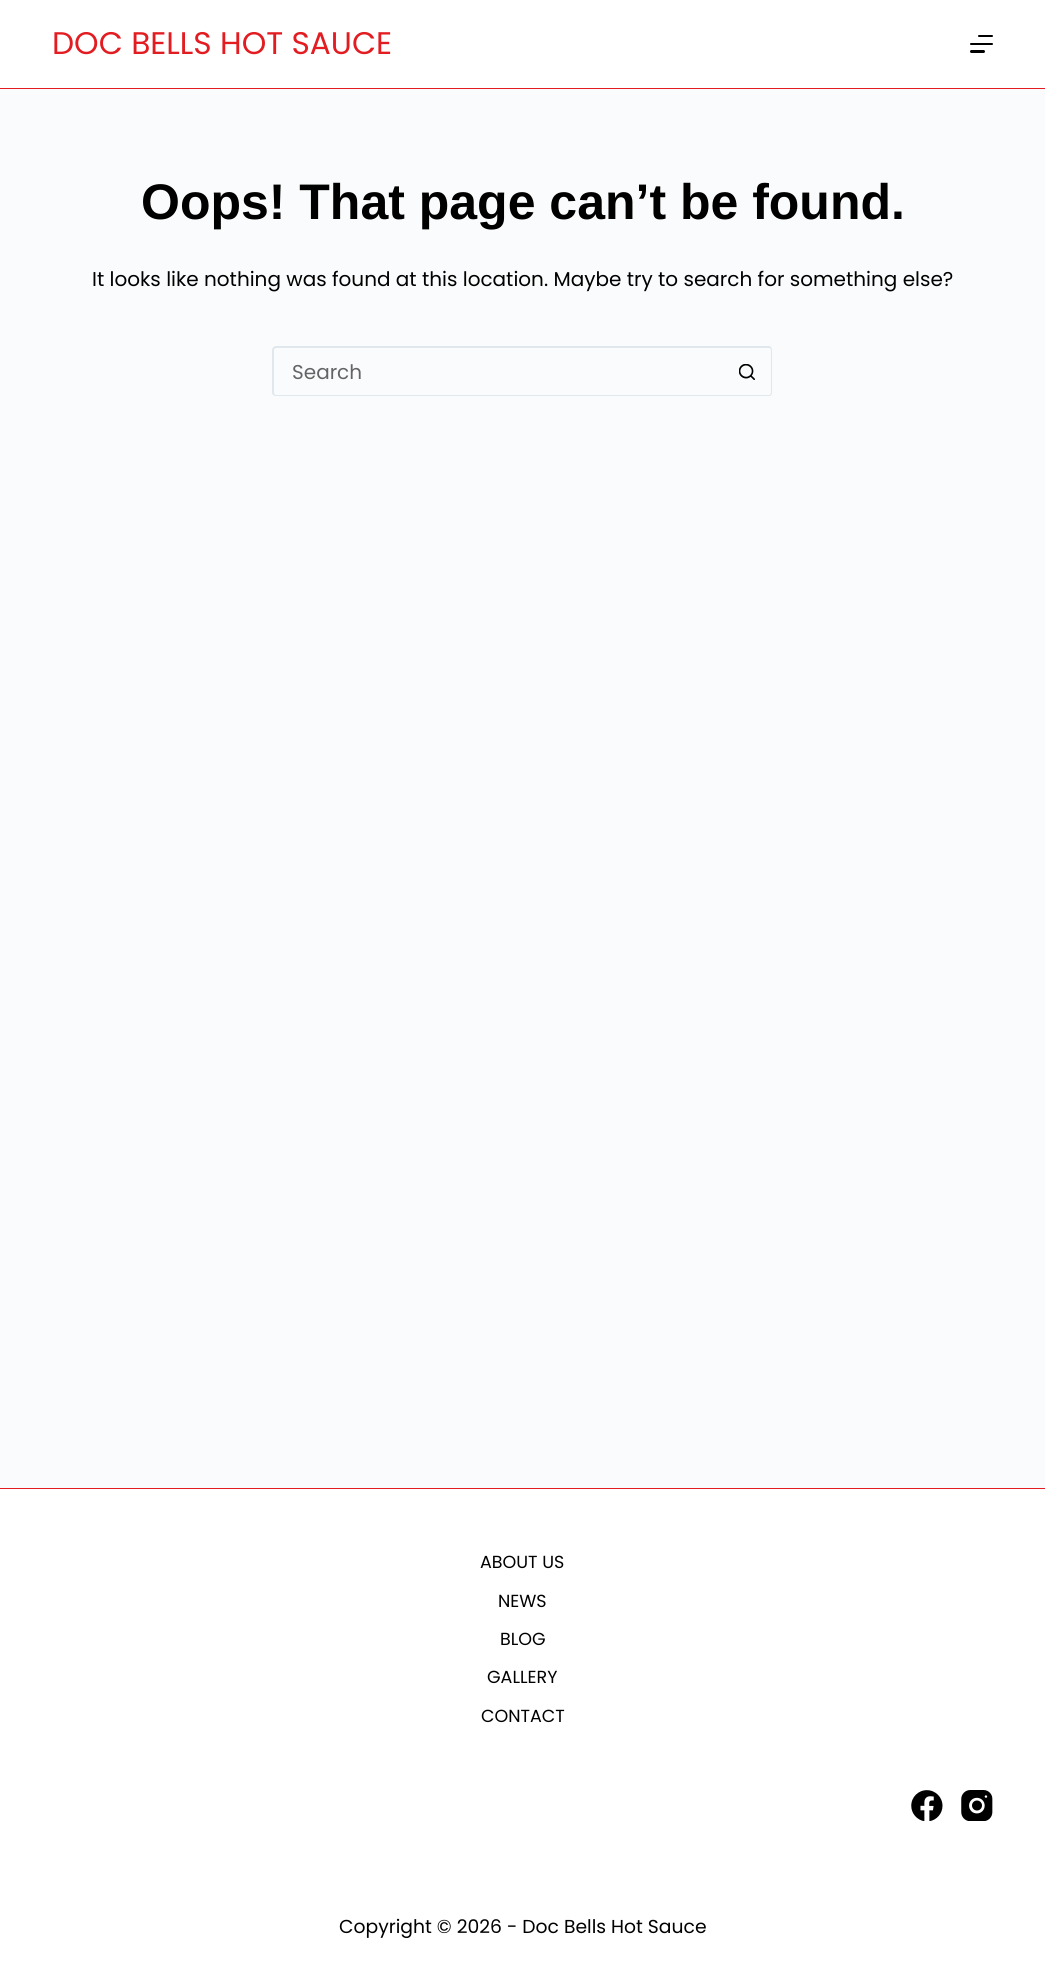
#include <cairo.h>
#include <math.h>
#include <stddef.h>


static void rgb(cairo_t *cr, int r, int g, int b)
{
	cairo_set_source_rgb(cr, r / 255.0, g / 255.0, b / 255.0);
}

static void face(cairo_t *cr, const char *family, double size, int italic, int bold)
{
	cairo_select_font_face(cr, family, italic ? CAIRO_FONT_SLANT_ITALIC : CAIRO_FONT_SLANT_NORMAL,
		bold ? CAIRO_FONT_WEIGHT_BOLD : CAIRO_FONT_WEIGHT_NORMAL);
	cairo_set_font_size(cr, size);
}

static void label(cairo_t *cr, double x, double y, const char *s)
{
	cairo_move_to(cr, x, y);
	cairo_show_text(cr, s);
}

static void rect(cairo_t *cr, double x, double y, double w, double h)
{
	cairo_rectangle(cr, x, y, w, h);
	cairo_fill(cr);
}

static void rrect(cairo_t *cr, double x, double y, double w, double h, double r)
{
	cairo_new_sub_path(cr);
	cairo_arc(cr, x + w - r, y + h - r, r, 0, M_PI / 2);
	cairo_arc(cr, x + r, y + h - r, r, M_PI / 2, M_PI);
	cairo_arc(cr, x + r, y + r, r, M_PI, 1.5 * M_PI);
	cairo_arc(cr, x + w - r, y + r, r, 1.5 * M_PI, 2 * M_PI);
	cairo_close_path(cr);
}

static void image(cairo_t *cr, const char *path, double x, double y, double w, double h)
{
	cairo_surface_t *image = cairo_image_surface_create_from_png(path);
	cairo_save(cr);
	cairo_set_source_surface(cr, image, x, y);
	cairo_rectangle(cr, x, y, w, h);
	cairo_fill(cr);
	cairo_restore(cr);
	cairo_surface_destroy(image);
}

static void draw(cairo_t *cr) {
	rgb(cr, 250, 251, 252);
	cairo_paint(cr);
	rgb(cr, 255, 255, 255);
	rect(cr, 0, 0, 1045, 88);
	rgb(cr, 226, 28, 33);
	rect(cr, 0, 88, 1045, 1);
	face(cr, "Poppins", 31.25, 0, 0);
	label(cr, 52, 54, "DOC BELLS HOT SAUCE");
	rgb(cr, 0, 0, 0);
	rrect(cr, 978, 35, 15, 2, 1);
	cairo_fill(cr);
	rrect(cr, 970, 43, 23, 2, 1);
	cairo_fill(cr);
	rrect(cr, 970, 50, 15, 3, 1.5);
	cairo_fill(cr);
	face(cr, "Liberation Sans", 50, 0, 1);
	label(cr, 141, 219, "Oops! That page can’t be found.");
	face(cr, "Poppins", 20, 0, 0);
	label(cr, 92, 286, "It looks like nothing was found at this location. Maybe try to search for something else?");
	rgb(cr, 225, 232, 237);
	cairo_set_fill_rule(cr, CAIRO_FILL_RULE_EVEN_ODD);
	cairo_new_path(cr);
	cairo_move_to(cr, 276, 346);
	cairo_line_to(cr, 722, 346);
	cairo_line_to(cr, 722, 396);
	cairo_line_to(cr, 276, 396);
	cairo_curve_to(cr, 274, 396, 272, 395, 272, 392);
	cairo_line_to(cr, 272, 350);
	cairo_curve_to(cr, 272, 348, 274, 346, 276, 346);
	cairo_close_path(cr);
	cairo_move_to(cr, 276, 348);
	cairo_line_to(cr, 722, 348);
	cairo_line_to(cr, 722, 395);
	cairo_line_to(cr, 276, 395);
	cairo_curve_to(cr, 275, 395, 274, 394, 274, 392);
	cairo_line_to(cr, 274, 350);
	cairo_curve_to(cr, 274, 349, 275, 348, 276, 348);
	cairo_close_path(cr);
	cairo_fill(cr);
	rgb(cr, 100, 100, 101);
	label(cr, 292, 379, "Search");
	rgb(cr, 225, 232, 237);
	cairo_new_path(cr);
	cairo_move_to(cr, 722, 346);
	cairo_line_to(cr, 769, 346);
	cairo_curve_to(cr, 771, 346, 772, 348, 772, 350);
	cairo_line_to(cr, 772, 392);
	cairo_curve_to(cr, 772, 395, 771, 396, 769, 396);
	cairo_line_to(cr, 722, 396);
	cairo_close_path(cr);
	cairo_move_to(cr, 722, 348);
	cairo_line_to(cr, 769, 348);
	cairo_curve_to(cr, 770, 348, 771, 349, 771, 350);
	cairo_line_to(cr, 771, 392);
	cairo_curve_to(cr, 771, 394, 770, 395, 769, 395);
	cairo_line_to(cr, 722, 395);
	cairo_close_path(cr);
	cairo_fill(cr);
	image(cr, "image0.png", 739, 364, 16, 16);
	rgb(cr, 255, 255, 255);
	rect(cr, 0, 1489, 1045, 480);
	rgb(cr, 226, 28, 33);
	rect(cr, 0, 1488, 1045, 1);
	face(cr, "Poppins", 17.5, 0, 0);
	rgb(cr, 0, 0, 0);
	label(cr, 480, 1568, "ABOUT US");
	label(cr, 498, 1607, "NEWS");
	label(cr, 500, 1645, "BLOG");
	label(cr, 487, 1683, "GALLERY");
	label(cr, 481, 1722, "CONTACT");
	image(cr, "image1.png", 911, 1790, 32, 31);
	image(cr, "image2.png", 961, 1790, 32, 31);
	face(cr, "Poppins", 18.75, 0, 0);
	label(cr, 339, 1933, "Copyright © 2026 - Doc Bells Hot Sauce");
}

int main(void) {
	cairo_surface_t *surface = cairo_image_surface_create(CAIRO_FORMAT_RGB24, 1045, 1969);
	cairo_t *cr = cairo_create(surface);
	cairo_font_options_t *options = cairo_font_options_create();
	cairo_font_options_set_hint_metrics(options, CAIRO_HINT_METRICS_OFF);
	cairo_font_options_set_hint_style(options, CAIRO_HINT_STYLE_NONE);
	cairo_set_font_options(cr, options);
	cairo_set_miter_limit(cr, 4);
	draw(cr);
	cairo_surface_write_to_png(surface, "render.png");
	cairo_font_options_destroy(options);
	cairo_destroy(cr);
	cairo_surface_destroy(surface);
	return 0;
}
